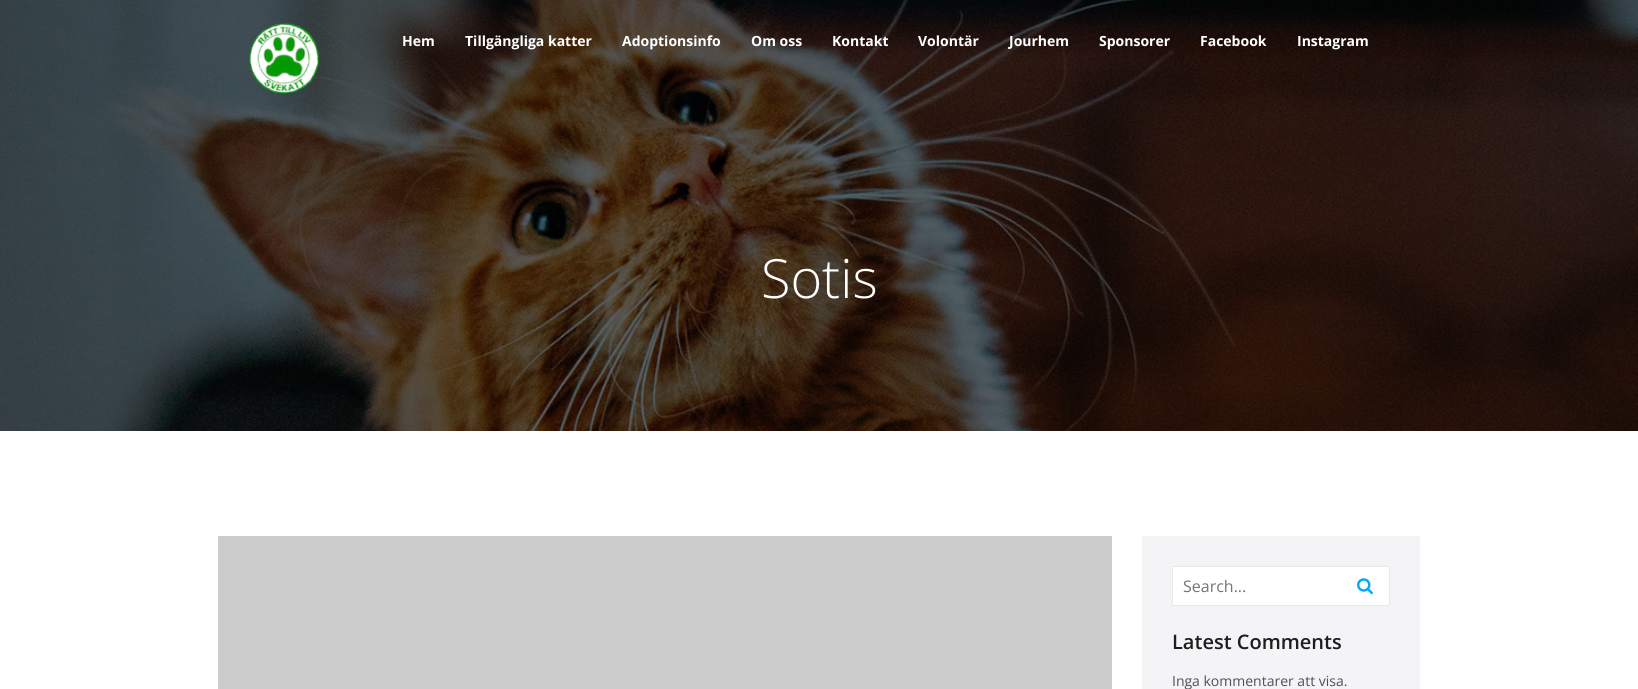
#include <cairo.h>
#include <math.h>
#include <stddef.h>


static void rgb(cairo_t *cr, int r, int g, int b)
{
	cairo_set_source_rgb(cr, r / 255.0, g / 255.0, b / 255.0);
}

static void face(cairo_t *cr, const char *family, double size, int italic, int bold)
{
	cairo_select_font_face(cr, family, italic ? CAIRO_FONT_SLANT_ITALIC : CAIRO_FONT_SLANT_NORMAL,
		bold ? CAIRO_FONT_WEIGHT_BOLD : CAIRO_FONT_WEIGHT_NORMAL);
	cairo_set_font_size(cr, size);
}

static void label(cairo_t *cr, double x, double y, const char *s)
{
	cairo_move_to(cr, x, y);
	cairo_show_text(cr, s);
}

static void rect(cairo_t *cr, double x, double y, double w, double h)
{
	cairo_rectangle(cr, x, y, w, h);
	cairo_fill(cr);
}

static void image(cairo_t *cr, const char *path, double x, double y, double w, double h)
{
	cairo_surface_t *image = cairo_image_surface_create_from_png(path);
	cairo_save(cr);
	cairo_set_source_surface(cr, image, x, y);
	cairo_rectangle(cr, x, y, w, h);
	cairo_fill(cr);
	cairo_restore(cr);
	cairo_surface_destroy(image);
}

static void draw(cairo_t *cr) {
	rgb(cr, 255, 255, 255);
	cairo_paint(cr);
	image(cr, "image1.png", 0, 0, 1638, 431);
	image(cr, "image0.png", 249, 23, 71, 71);
	face(cr, "Open Sans", 14, 0, 1);
	rgb(cr, 255, 255, 255);
	label(cr, 402, 46, "Hem");
	label(cr, 465, 46, "Tillgängliga katter");
	label(cr, 622, 46, "Adoptionsinfo");
	label(cr, 751, 46, "Om oss");
	label(cr, 832, 46, "Kontakt");
	label(cr, 918, 46, "Volontär");
	label(cr, 1009, 46, "Jourhem");
	label(cr, 1099, 46, "Sponsorer");
	label(cr, 1200, 46, "Facebook");
	label(cr, 1297, 46, "Instagram");
	face(cr, "Open Sans Light", 54, 0, 0);
	label(cr, 761, 298, "Sotis");
	rgb(cr, 204, 204, 204);
	rect(cr, 218, 536, 894, 153);
	rgb(cr, 244, 244, 247);
	rect(cr, 1142, 536, 278, 153);
	rgb(cr, 255, 255, 255);
	rect(cr, 1172, 566, 218, 40);
	rgb(cr, 233, 233, 233);
	cairo_new_path(cr);
	cairo_move_to(cr, 1172, 566);
	cairo_line_to(cr, 1340, 566);
	cairo_line_to(cr, 1340, 567);
	cairo_line_to(cr, 1173, 567);
	cairo_close_path(cr);
	cairo_fill(cr);
	cairo_new_path(cr);
	cairo_move_to(cr, 1340, 606);
	cairo_line_to(cr, 1172, 606);
	cairo_line_to(cr, 1173, 605);
	cairo_line_to(cr, 1340, 605);
	cairo_close_path(cr);
	cairo_fill(cr);
	cairo_set_source_rgba(cr, 0.118, 0.118, 0.118, 0.1);
	cairo_new_path(cr);
	cairo_move_to(cr, 1172, 606);
	cairo_line_to(cr, 1172, 566);
	cairo_line_to(cr, 1173, 567);
	cairo_line_to(cr, 1173, 605);
	cairo_close_path(cr);
	cairo_fill(cr);
	face(cr, "Open Sans", 16, 0, 0);
	rgb(cr, 117, 117, 117);
	label(cr, 1183, 592, "Search...");
	rgb(cr, 233, 233, 233);
	cairo_new_path(cr);
	cairo_move_to(cr, 1340, 566);
	cairo_line_to(cr, 1390, 566);
	cairo_line_to(cr, 1389, 567);
	cairo_line_to(cr, 1340, 567);
	cairo_close_path(cr);
	cairo_fill(cr);
	cairo_set_source_rgba(cr, 0.118, 0.118, 0.118, 0.1);
	cairo_new_path(cr);
	cairo_move_to(cr, 1390, 566);
	cairo_line_to(cr, 1390, 606);
	cairo_line_to(cr, 1389, 605);
	cairo_line_to(cr, 1389, 567);
	cairo_close_path(cr);
	cairo_fill(cr);
	cairo_new_path(cr);
	cairo_move_to(cr, 1390, 606);
	cairo_line_to(cr, 1340, 606);
	cairo_line_to(cr, 1340, 605);
	cairo_line_to(cr, 1389, 605);
	cairo_close_path(cr);
	cairo_fill(cr);
	image(cr, "image2.png", 1357, 578, 16, 17);
	face(cr, "Open Sans SemiBold", 20, 0, 0);
	rgb(cr, 30, 30, 30);
	label(cr, 1172, 649, "Latest Comments");
	face(cr, "Open Sans", 14, 0, 0);
	rgb(cr, 80, 80, 80);
	label(cr, 1172, 686, "Inga kommentarer att visa.");
}

int main(void) {
	cairo_surface_t *surface = cairo_image_surface_create(CAIRO_FORMAT_RGB24, 1638, 689);
	cairo_t *cr = cairo_create(surface);
	cairo_font_options_t *options = cairo_font_options_create();
	cairo_font_options_set_hint_metrics(options, CAIRO_HINT_METRICS_OFF);
	cairo_font_options_set_hint_style(options, CAIRO_HINT_STYLE_NONE);
	cairo_set_font_options(cr, options);
	cairo_set_miter_limit(cr, 4);
	draw(cr);
	cairo_surface_write_to_png(surface, "render.png");
	cairo_font_options_destroy(options);
	cairo_destroy(cr);
	cairo_surface_destroy(surface);
	return 0;
}
